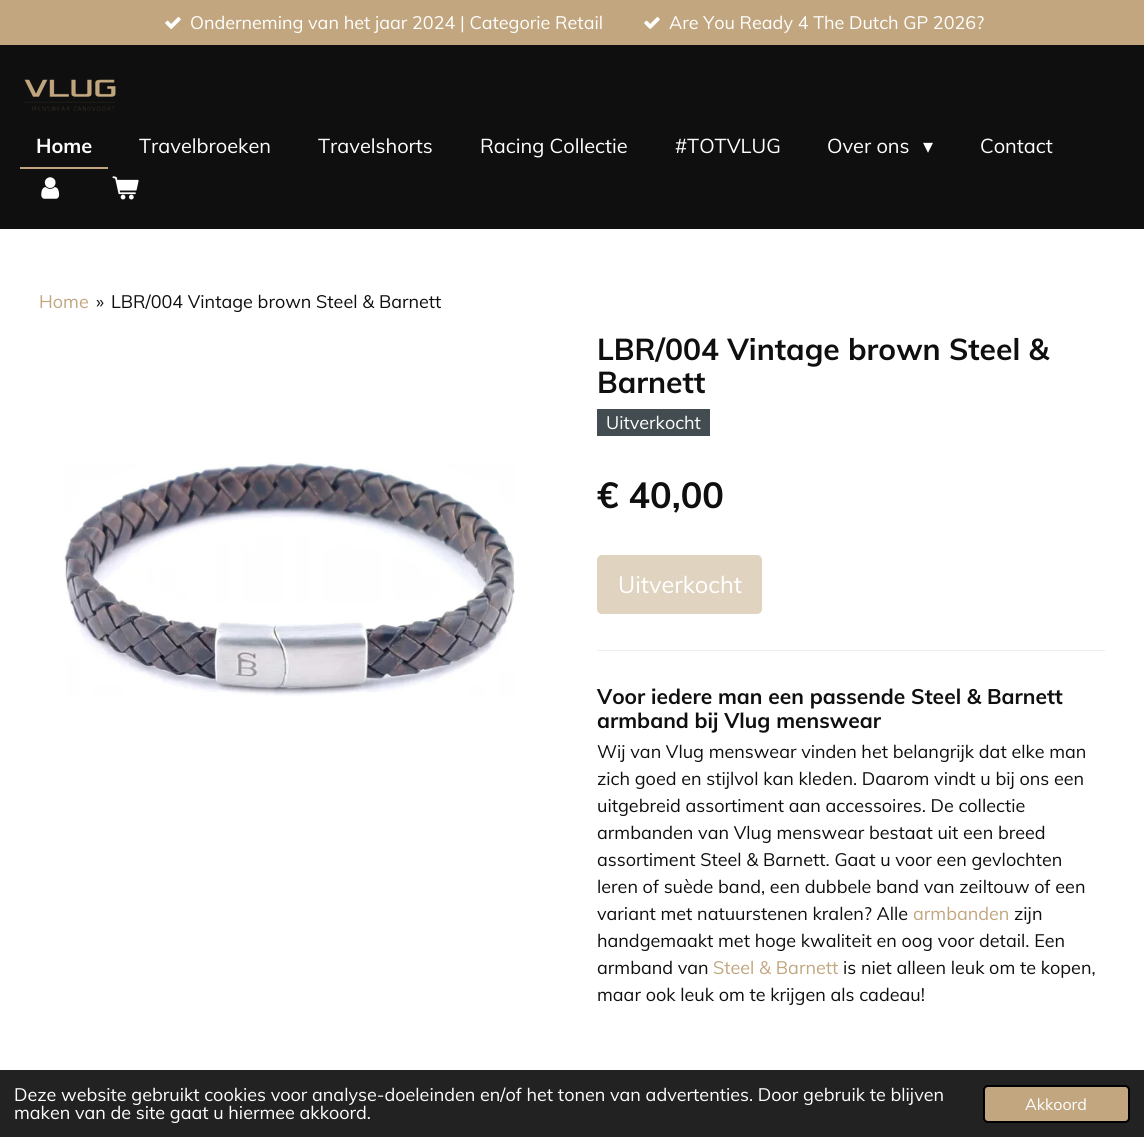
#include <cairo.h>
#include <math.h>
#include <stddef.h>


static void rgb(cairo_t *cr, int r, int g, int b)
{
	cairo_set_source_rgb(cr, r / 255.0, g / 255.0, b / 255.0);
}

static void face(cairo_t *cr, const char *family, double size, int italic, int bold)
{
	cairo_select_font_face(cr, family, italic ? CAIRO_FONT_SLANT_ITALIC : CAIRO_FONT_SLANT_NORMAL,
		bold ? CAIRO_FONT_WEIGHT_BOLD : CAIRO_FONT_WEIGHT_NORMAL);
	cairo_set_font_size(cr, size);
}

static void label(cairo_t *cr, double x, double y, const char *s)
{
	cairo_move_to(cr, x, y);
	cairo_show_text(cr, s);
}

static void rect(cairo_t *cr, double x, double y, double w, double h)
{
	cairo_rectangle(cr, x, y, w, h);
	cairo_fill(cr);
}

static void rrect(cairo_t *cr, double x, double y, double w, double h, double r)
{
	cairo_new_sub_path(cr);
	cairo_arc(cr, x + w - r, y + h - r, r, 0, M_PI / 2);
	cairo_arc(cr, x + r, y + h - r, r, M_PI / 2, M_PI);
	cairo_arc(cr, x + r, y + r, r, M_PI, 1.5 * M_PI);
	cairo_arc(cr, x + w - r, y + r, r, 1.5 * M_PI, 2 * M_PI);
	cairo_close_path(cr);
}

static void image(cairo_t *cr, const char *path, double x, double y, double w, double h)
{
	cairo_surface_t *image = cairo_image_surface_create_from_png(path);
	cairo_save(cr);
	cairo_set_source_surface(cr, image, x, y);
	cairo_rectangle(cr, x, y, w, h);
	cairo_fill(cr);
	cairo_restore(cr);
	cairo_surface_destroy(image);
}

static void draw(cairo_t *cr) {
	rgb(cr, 15, 15, 15);
	cairo_paint(cr);
	rgb(cr, 193, 166, 127);
	rect(cr, 0, 0, 1144, 45);
	image(cr, "image0.png", 165, 17, 16, 12);
	face(cr, "Muli", 18, 0, 0);
	rgb(cr, 255, 255, 255);
	label(cr, 190, 29, "Onderneming van het jaar 2024 | Categorie Retail");
	image(cr, "image0.png", 644, 17, 16, 12);
	label(cr, 669, 29, "Are You Ready 4 The Dutch GP 2026?");
	image(cr, "image1.png", 24, 79, 92, 32);
	rgb(cr, 193, 166, 127);
	rect(cr, 20, 167, 88, 2);
	face(cr, "Muli", 20, 0, 1);
	rgb(cr, 255, 255, 255);
	label(cr, 36, 153, "Home");
	face(cr, "Muli", 20, 0, 0);
	label(cr, 139, 153, "Travelbroeken");
	label(cr, 318, 153, "Travelshorts");
	label(cr, 480, 153, "Racing Collectie");
	label(cr, 675, 153, "#TOTVLUG");
	label(cr, 827, 153, "Over ons");
	face(cr, "DejaVu Sans", 20, 0, 0);
	label(cr, 923, 153, "▾");
	face(cr, "Muli", 20, 0, 0);
	label(cr, 980, 153, "Contact");
	image(cr, "image2.png", 41, 177, 19, 22);
	image(cr, "image3.png", 112, 176, 27, 24);
	rect(cr, 0, 229, 1144, 841);
	face(cr, "Muli", 18, 0, 0);
	rgb(cr, 193, 166, 127);
	label(cr, 39, 308, "Home");
	rgb(cr, 15, 15, 15);
	label(cr, 96, 308, "»");
	label(cr, 111, 308, "LBR/004 Vintage brown Steel & Barnett");
	face(cr, "Muli", 30, 0, 1);
	label(cr, 597, 360, "LBR/004 Vintage brown Steel &");
	label(cr, 597, 393, "Barnett");
	rgb(cr, 66, 76, 81);
	rect(cr, 597, 409, 113, 27);
	face(cr, "Muli", 18, 0, 0);
	rgb(cr, 255, 255, 255);
	label(cr, 606, 429, "Uitverkocht");
	image(cr, "image4.png", 63, 462, 452, 234);
	face(cr, "Muli", 36, 0, 1);
	rgb(cr, 15, 15, 15);
	label(cr, 597, 508, "€ 40,00");
	rgb(cr, 224, 211, 191);
	rrect(cr, 597, 555, 165, 59, 5);
	cairo_fill(cr);
	face(cr, "Muli", 23.5, 0, 0);
	rgb(cr, 255, 255, 255);
	label(cr, 618, 593, "Uitverkocht");
	rgb(cr, 238, 238, 238);
	rect(cr, 597, 650, 508, 1);
	face(cr, "Muli", 21, 0, 1);
	rgb(cr, 15, 15, 15);
	label(cr, 597, 704, "Voor iedere man een passende Steel & Barnett");
	label(cr, 597, 728, "armband bij Vlug menswear");
	face(cr, "Muli", 18, 0, 0);
	label(cr, 597, 758, "Wij van Vlug menswear vinden het belangrijk dat elke man");
	label(cr, 597, 785, "zich goed en stijlvol kan kleden. Daarom vindt u bij ons een");
	label(cr, 597, 812, "uitgebreid assortiment aan accessoires. De collectie");
	label(cr, 597, 839, "armbanden van Vlug menswear bestaat uit een breed");
	label(cr, 597, 866, "assortiment Steel & Barnett. Gaat u voor een gevlochten");
	label(cr, 597, 893, "leren of suède band, een dubbele band van zeiltouw of een");
	label(cr, 597, 920, "variant met natuurstenen kralen? Alle");
	rgb(cr, 193, 166, 127);
	label(cr, 913, 920, "armbanden");
	rgb(cr, 15, 15, 15);
	label(cr, 1014, 920, "zijn");
	label(cr, 597, 947, "handgemaakt met hoge kwaliteit en oog voor detail. Een");
	label(cr, 597, 974, "armband van");
	rgb(cr, 193, 166, 127);
	label(cr, 713, 974, "Steel & Barnett");
	rgb(cr, 15, 15, 15);
	label(cr, 843, 974, "is niet alleen leuk om te kopen,");
	label(cr, 597, 1001, "maar ook leuk om te krijgen als cadeau!");
	rgb(cr, 34, 34, 34);
	rect(cr, 0, 1070, 1144, 67);
	rgb(cr, 255, 255, 255);
	label(cr, 14, 1101, "Deze website gebruikt cookies voor analyse-doeleinden en/of het tonen van advertenties. Door gebruik te blijven");
	label(cr, 14, 1119, "maken van de site gaat u hiermee akkoord.");
	rgb(cr, 193, 166, 127);
	rrect(cr, 984, 1086, 145, 36, 4);
	cairo_fill_preserve(cr);
	rgb(cr, 0, 0, 0);
	cairo_stroke(cr);
	face(cr, "Muli", 16, 0, 0);
	rgb(cr, 255, 255, 255);
	label(cr, 1025, 1110, "Akkoord");
}

int main(void) {
	cairo_surface_t *surface = cairo_image_surface_create(CAIRO_FORMAT_RGB24, 1144, 1137);
	cairo_t *cr = cairo_create(surface);
	cairo_font_options_t *options = cairo_font_options_create();
	cairo_font_options_set_hint_metrics(options, CAIRO_HINT_METRICS_OFF);
	cairo_font_options_set_hint_style(options, CAIRO_HINT_STYLE_NONE);
	cairo_set_font_options(cr, options);
	cairo_set_miter_limit(cr, 4);
	draw(cr);
	cairo_surface_write_to_png(surface, "render.png");
	cairo_font_options_destroy(options);
	cairo_destroy(cr);
	cairo_surface_destroy(surface);
	return 0;
}
